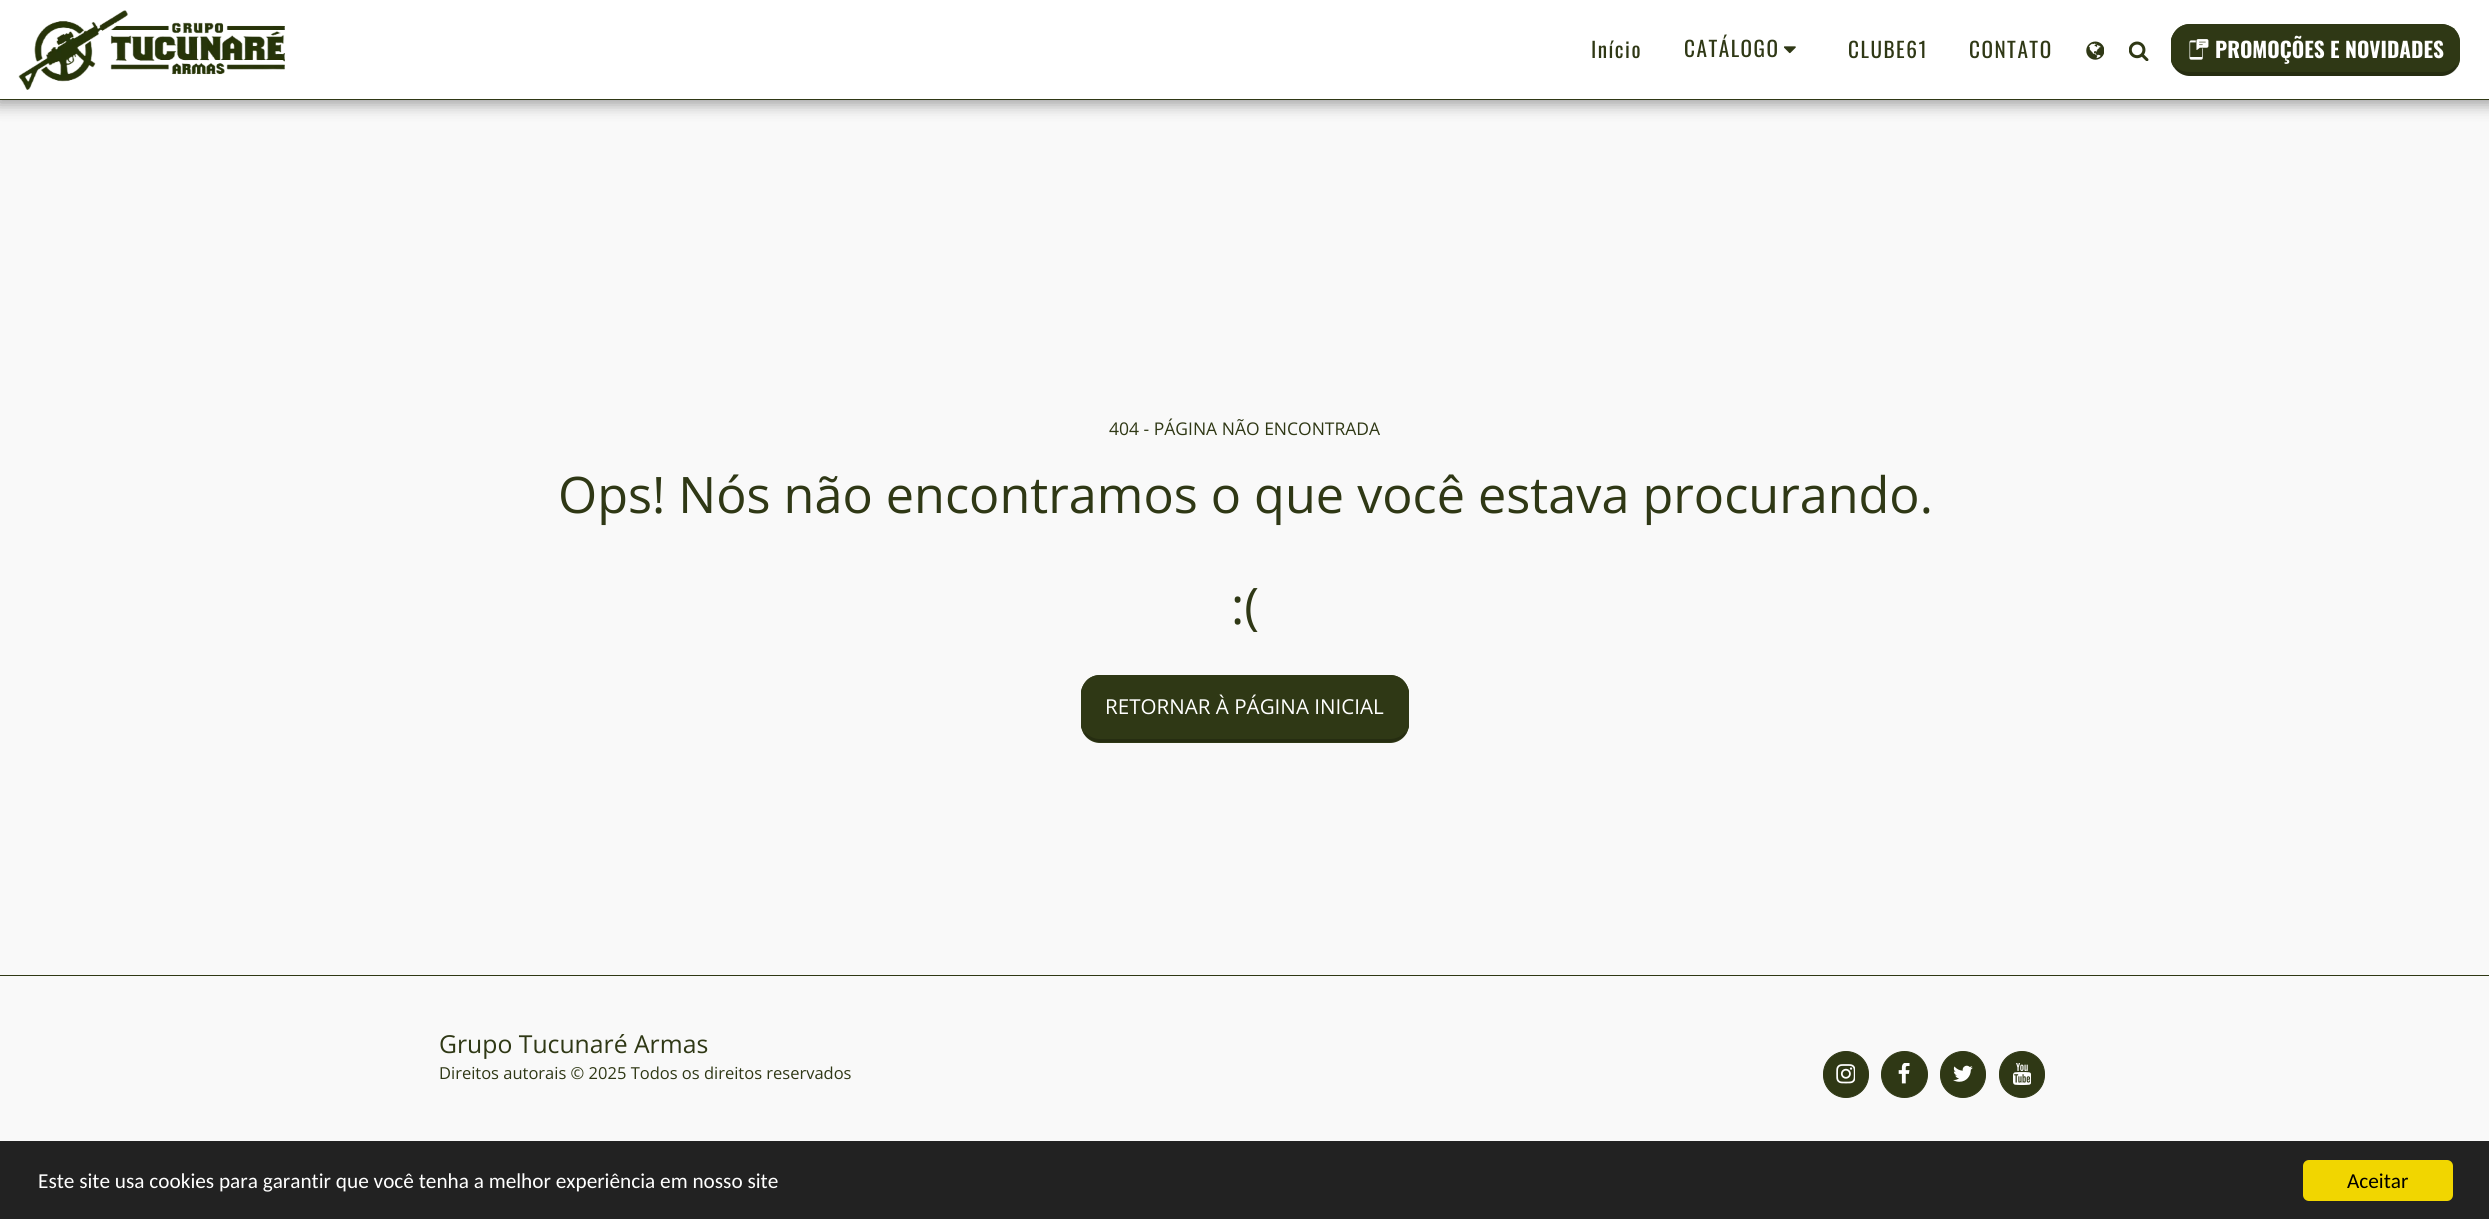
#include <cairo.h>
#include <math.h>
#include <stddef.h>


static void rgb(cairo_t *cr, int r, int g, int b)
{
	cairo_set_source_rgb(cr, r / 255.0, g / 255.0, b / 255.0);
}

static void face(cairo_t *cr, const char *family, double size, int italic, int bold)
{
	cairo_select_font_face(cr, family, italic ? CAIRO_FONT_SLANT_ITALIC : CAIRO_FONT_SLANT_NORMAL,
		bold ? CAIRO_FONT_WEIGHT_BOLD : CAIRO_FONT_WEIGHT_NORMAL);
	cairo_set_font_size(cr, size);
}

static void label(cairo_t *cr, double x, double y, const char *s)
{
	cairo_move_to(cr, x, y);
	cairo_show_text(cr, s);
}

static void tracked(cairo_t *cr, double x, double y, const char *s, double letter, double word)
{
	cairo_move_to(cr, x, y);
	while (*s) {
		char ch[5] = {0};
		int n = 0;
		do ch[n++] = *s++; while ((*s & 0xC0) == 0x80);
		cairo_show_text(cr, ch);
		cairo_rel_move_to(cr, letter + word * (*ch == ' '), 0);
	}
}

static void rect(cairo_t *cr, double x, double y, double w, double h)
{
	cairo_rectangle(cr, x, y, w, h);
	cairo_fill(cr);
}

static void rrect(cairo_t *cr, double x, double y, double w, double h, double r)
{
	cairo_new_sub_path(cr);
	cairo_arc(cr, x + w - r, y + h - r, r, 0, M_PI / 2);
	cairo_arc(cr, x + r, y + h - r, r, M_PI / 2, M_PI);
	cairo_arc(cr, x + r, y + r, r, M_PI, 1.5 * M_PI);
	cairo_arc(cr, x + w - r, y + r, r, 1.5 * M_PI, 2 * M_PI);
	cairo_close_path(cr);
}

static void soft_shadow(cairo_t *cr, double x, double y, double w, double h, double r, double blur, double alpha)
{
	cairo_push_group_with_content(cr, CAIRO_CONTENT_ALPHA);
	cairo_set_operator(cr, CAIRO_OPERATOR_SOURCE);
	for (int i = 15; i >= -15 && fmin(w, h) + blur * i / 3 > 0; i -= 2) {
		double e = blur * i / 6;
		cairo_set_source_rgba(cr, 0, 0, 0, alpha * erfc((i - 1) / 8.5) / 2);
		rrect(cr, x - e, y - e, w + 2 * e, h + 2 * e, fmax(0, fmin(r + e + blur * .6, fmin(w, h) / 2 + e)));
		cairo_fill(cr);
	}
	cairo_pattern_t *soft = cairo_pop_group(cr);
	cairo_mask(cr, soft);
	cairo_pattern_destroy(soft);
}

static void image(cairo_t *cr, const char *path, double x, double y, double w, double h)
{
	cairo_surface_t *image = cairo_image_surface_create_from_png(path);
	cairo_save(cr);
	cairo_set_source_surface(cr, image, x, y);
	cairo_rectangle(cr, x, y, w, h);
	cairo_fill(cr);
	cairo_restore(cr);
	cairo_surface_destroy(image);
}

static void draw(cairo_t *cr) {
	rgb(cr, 249, 249, 249);
	cairo_paint(cr);
	rgb(cr, 0, 0, 0);
	soft_shadow(cr, -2, 0, 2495, 105, 0, 7.5, 0.35);
	rgb(cr, 255, 255, 255);
	rect(cr, 0, 0, 2489, 99);
	rgb(cr, 47, 56, 21);
	rect(cr, 0, 99, 2489, 1);
	image(cr, "image0.png", 18, 10, 267, 80);
	face(cr, "Oswald", 21.25, 0, 0);
	tracked(cr, 1591, 58, "Início", 1.5, 0);
	tracked(cr, 1684, 57, "CATÁLOGO", 1.5, 0);
	image(cr, "image1.png", 1784, 46, 12, 8);
	tracked(cr, 1848, 58, "CLUBE61", 1.5, 0);
	tracked(cr, 1969, 58, "CONTATO", 1.5, 0);
	image(cr, "image2.png", 2086, 41, 18, 19);
	image(cr, "image3.png", 2129, 41, 20, 20);
	rrect(cr, 2171, 24, 289, 52, 19);
	cairo_fill(cr);
	cairo_new_path(cr);
	cairo_move_to(cr, 2190, 24);
	cairo_curve_to(cr, 2185, 24, 2180, 26, 2177, 29);
	cairo_line_to(cr, 2177, 30);
	cairo_curve_to(cr, 2181, 27, 2185, 25, 2190, 25);
	cairo_line_to(cr, 2441, 25);
	cairo_curve_to(cr, 2446, 25, 2450, 27, 2454, 30);
	cairo_line_to(cr, 2455, 29);
	cairo_curve_to(cr, 2451, 26, 2446, 24, 2441, 24);
	cairo_close_path(cr);
	cairo_fill(cr);
	cairo_new_path(cr);
	cairo_move_to(cr, 2454.5, 29);
	cairo_curve_to(cr, 2458, 32.5, 2460, 37, 2460, 42);
	cairo_line_to(cr, 2460, 58);
	cairo_curve_to(cr, 2460, 61.5, 2459, 65, 2457, 67.5);
	cairo_line_to(cr, 2456.5, 65.5);
	cairo_curve_to(cr, 2458, 63.5, 2459, 61, 2459, 58);
	cairo_line_to(cr, 2459, 42);
	cairo_curve_to(cr, 2459, 37.5, 2457, 33, 2453.5, 30);
	cairo_close_path(cr);
	cairo_fill(cr);
	cairo_set_source_rgba(cr, 0, 0, 0, 0.2);
	cairo_new_path(cr);
	cairo_move_to(cr, 2457, 68);
	cairo_curve_to(cr, 2454, 73, 2448, 76, 2441, 76);
	cairo_line_to(cr, 2190, 76);
	cairo_curve_to(cr, 2184, 76, 2178, 73, 2174, 68);
	cairo_line_to(cr, 2175, 66);
	cairo_curve_to(cr, 2178, 70, 2184, 72, 2190, 72);
	cairo_line_to(cr, 2441, 72);
	cairo_curve_to(cr, 2448, 72, 2453, 69, 2456, 65);
	cairo_close_path(cr);
	cairo_fill(cr);
	rgb(cr, 47, 56, 21);
	cairo_new_path(cr);
	cairo_move_to(cr, 2171, 39);
	cairo_curve_to(cr, 2172, 35.5, 2174, 32, 2177, 29);
	cairo_line_to(cr, 2177.5, 30);
	cairo_curve_to(cr, 2174, 33, 2172, 37.5, 2172, 42);
	cairo_line_to(cr, 2172, 58);
	cairo_curve_to(cr, 2172, 61, 2173, 63.5, 2175, 65.5);
	cairo_line_to(cr, 2174, 67.5);
	cairo_curve_to(cr, 2172.5, 65.5, 2171.5, 63.5, 2171, 61);
	cairo_close_path(cr);
	cairo_fill(cr);
	image(cr, "image4.png", 2189, 39, 20, 21);
	face(cr, "Oswald", 21.25, 0, 1);
	rgb(cr, 255, 255, 255);
	label(cr, 2215, 58, "PROMOÇÕES E NOVIDADES");
	face(cr, "Open Sans", 17.5, 0, 0);
	rgb(cr, 47, 56, 21);
	label(cr, 1109, 435, "404 - PÁGINA NÃO ENCONTRADA");
	face(cr, "Open Sans", 50.35, 0, 0);
	label(cr, 558, 513, "Ops! Nós não encontramos o que você estava procurando.");
	label(cr, 1231, 624, ":(");
	rrect(cr, 1081, 675, 328, 68, 19);
	cairo_fill(cr);
	cairo_new_path(cr);
	cairo_move_to(cr, 1100, 675);
	cairo_curve_to(cr, 1095, 675, 1090, 677, 1087, 680);
	cairo_line_to(cr, 1087, 681);
	cairo_curve_to(cr, 1091, 678, 1095, 676, 1100, 676);
	cairo_line_to(cr, 1390, 676);
	cairo_curve_to(cr, 1395, 676, 1399, 678, 1403, 681);
	cairo_line_to(cr, 1403, 680);
	cairo_curve_to(cr, 1400, 677, 1395, 675, 1390, 675);
	cairo_close_path(cr);
	cairo_fill(cr);
	cairo_new_path(cr);
	cairo_move_to(cr, 1409, 727);
	cairo_curve_to(cr, 1408, 729, 1407, 732, 1406, 734);
	cairo_line_to(cr, 1405, 732);
	cairo_curve_to(cr, 1410, 726, 1408, 716, 1408, 709);
	cairo_curve_to(cr, 1408, 700, 1410, 688, 1403, 681);
	cairo_line_to(cr, 1403, 680);
	cairo_curve_to(cr, 1406, 683, 1408, 687, 1409, 691);
	cairo_close_path(cr);
	cairo_fill(cr);
	cairo_set_source_rgba(cr, 0, 0, 0, 0.2);
	cairo_new_path(cr);
	cairo_move_to(cr, 1406, 734);
	cairo_curve_to(cr, 1402, 739, 1396, 742, 1390, 742);
	cairo_line_to(cr, 1100, 742);
	cairo_curve_to(cr, 1094, 742, 1088, 739, 1084, 734);
	cairo_line_to(cr, 1085, 732);
	cairo_curve_to(cr, 1088, 736, 1094, 739, 1100, 739);
	cairo_line_to(cr, 1390, 739);
	cairo_curve_to(cr, 1396, 739, 1402, 736, 1405, 732);
	cairo_close_path(cr);
	cairo_fill(cr);
	rgb(cr, 47, 56, 21);
	cairo_new_path(cr);
	cairo_move_to(cr, 1081, 691);
	cairo_curve_to(cr, 1082, 687, 1084, 683, 1087, 680);
	cairo_line_to(cr, 1087, 681);
	cairo_curve_to(cr, 1080, 688, 1082, 700, 1082, 709);
	cairo_curve_to(cr, 1082, 716, 1080, 726, 1085, 732);
	cairo_line_to(cr, 1084, 734);
	cairo_curve_to(cr, 1083, 732, 1082, 729, 1081, 727);
	cairo_close_path(cr);
	cairo_fill(cr);
	face(cr, "Open Sans", 20.6, 0, 0);
	rgb(cr, 255, 255, 255);
	label(cr, 1105, 714, "RETORNAR À PÁGINA INICIAL");
	rgb(cr, 47, 56, 21);
	rect(cr, 0, 975, 2489, 1);
	face(cr, "Open Sans", 24.75, 0, 0);
	label(cr, 439, 1053, "Grupo Tucunaré Armas");
	face(cr, "Open Sans", 16.5, 0, 0);
	label(cr, 439, 1079, "Direitos autorais © 2025 Todos os direitos reservados");
	rrect(cr, 1823.5, 1051.5, 45, 46, 22.5);
	cairo_fill_preserve(cr);
	cairo_set_line_width(cr, 1);
	cairo_stroke(cr);
	image(cr, "image5.png", 1836, 1064, 19, 20);
	cairo_arc(cr, 1904.5, 1074.5, 23, 0, 2 * M_PI);
	cairo_fill_preserve(cr);
	cairo_stroke(cr);
	image(cr, "image6.png", 1898, 1063, 12, 21);
	rrect(cr, 1940.5, 1051.5, 45, 46, 22.5);
	cairo_fill_preserve(cr);
	cairo_stroke(cr);
	image(cr, "image7.png", 1953, 1065, 20, 17);
	rrect(cr, 1999.5, 1051.5, 45, 46, 22.5);
	cairo_fill_preserve(cr);
	cairo_stroke(cr);
	image(cr, "image8.png", 2013, 1063, 18, 22);
	rgb(cr, 34, 34, 34);
	rect(cr, 0, 1141, 2489, 78);
	face(cr, "Carlito", 21.25, 0, 0);
	rgb(cr, 255, 255, 255);
	label(cr, 38, 1188, "Este site usa cookies para garantir que você tenha a melhor experiência em nosso site");
	rgb(cr, 241, 214, 0);
	rrect(cr, 2303, 1160, 150, 41, 6);
	cairo_fill(cr);
	rgb(cr, 0, 0, 0);
	label(cr, 2347, 1188, "Aceitar");
}

int main(void) {
	cairo_surface_t *surface = cairo_image_surface_create(CAIRO_FORMAT_RGB24, 2489, 1219);
	cairo_t *cr = cairo_create(surface);
	cairo_font_options_t *options = cairo_font_options_create();
	cairo_font_options_set_hint_metrics(options, CAIRO_HINT_METRICS_OFF);
	cairo_font_options_set_hint_style(options, CAIRO_HINT_STYLE_NONE);
	cairo_set_font_options(cr, options);
	cairo_set_miter_limit(cr, 4);
	draw(cr);
	cairo_surface_write_to_png(surface, "render.png");
	cairo_font_options_destroy(options);
	cairo_destroy(cr);
	cairo_surface_destroy(surface);
	return 0;
}
